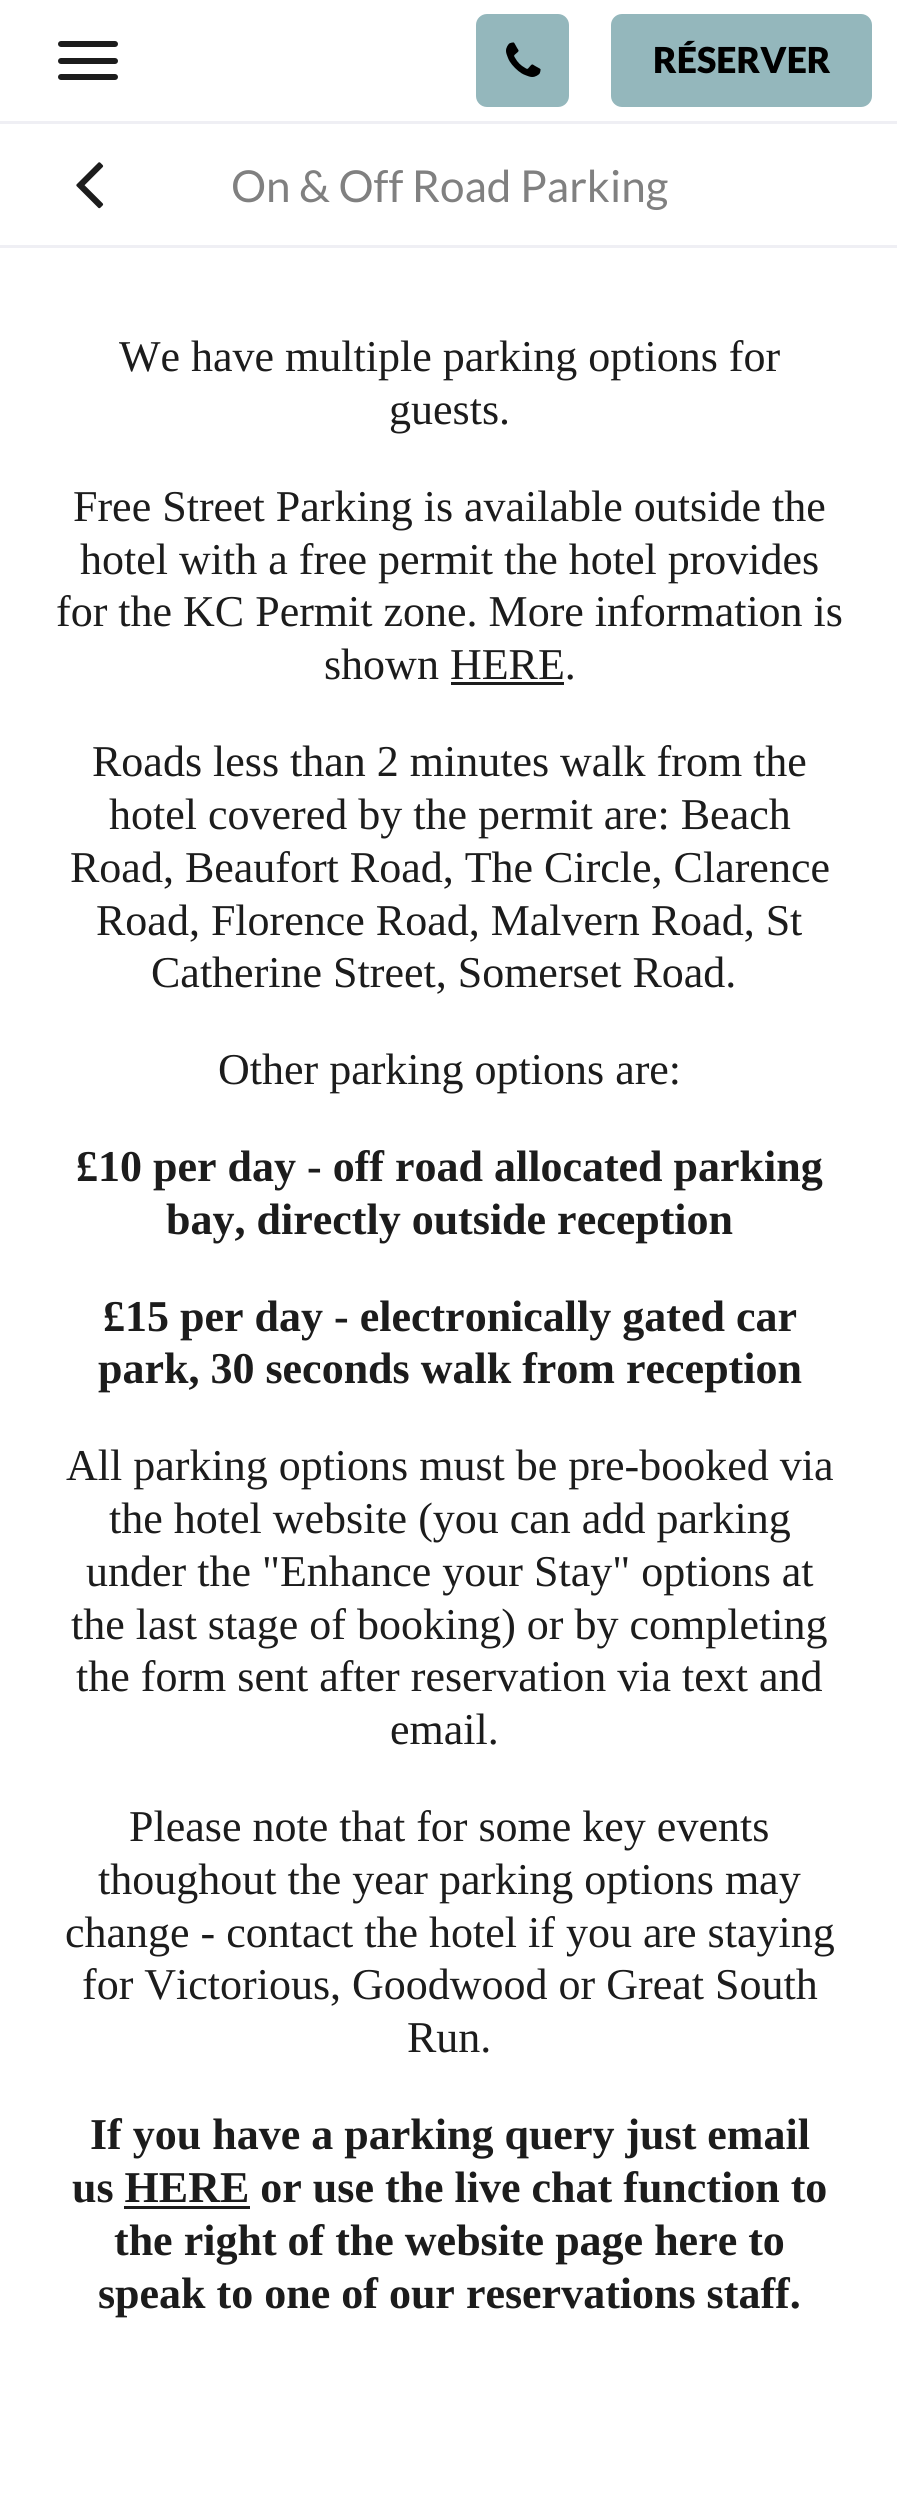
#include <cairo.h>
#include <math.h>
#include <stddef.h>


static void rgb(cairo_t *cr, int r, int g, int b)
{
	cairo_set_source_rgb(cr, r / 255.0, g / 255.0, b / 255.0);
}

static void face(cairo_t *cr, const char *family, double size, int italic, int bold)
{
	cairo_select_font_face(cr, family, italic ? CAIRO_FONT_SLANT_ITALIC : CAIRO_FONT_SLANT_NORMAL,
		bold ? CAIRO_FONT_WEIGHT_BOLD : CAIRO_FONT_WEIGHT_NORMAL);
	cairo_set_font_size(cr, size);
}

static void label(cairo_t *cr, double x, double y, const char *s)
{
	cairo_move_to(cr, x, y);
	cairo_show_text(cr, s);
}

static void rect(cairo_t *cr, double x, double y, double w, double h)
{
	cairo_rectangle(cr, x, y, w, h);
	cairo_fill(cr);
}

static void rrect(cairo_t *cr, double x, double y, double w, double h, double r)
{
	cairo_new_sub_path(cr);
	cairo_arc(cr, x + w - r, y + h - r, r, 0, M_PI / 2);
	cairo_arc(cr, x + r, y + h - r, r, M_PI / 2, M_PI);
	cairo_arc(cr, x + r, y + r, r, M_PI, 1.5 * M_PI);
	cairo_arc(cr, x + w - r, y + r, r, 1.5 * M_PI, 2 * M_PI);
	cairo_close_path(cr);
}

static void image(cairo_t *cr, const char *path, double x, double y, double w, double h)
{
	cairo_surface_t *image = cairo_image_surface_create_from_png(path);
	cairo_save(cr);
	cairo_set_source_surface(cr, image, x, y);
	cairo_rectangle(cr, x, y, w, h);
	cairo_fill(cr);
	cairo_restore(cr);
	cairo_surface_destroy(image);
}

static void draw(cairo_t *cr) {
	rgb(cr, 239, 239, 244);
	cairo_paint(cr);
	rgb(cr, 255, 255, 255);
	rect(cr, 0, 0, 897, 121);
	rgb(cr, 28, 28, 28);
	rrect(cr, 58, 41, 60, 6, 3);
	cairo_fill(cr);
	rrect(cr, 58, 58, 60, 6, 3);
	cairo_fill(cr);
	rrect(cr, 58, 74, 60, 6, 3);
	cairo_fill(cr);
	rgb(cr, 148, 183, 188);
	rrect(cr, 476, 14, 93, 93, 11);
	cairo_fill(cr);
	image(cr, "image0.png", 506, 42, 35, 35);
	rrect(cr, 611, 14, 261, 93, 11);
	cairo_fill(cr);
	face(cr, "Lato Black", 35.75, 0, 0);
	rgb(cr, 0, 0, 0);
	label(cr, 653, 73, "RÉSERVER");
	rgb(cr, 255, 255, 255);
	rect(cr, 0, 124, 897, 121);
	image(cr, "image1.png", 76, 162, 28, 47);
	face(cr, "Lato", 44, 0, 0);
	rgb(cr, 128, 128, 128);
	label(cr, 231, 202, "On & Off Road Parking");
	rgb(cr, 255, 255, 255);
	rect(cr, 0, 248, 897, 2258);
	face(cr, "Liberation Serif", 44, 0, 0);
	rgb(cr, 28, 28, 28);
	label(cr, 119, 371, "We have multiple parking options for");
	label(cr, 389, 424, "guests.");
	label(cr, 73, 521, "Free Street Parking is available outside the");
	label(cr, 80, 574, "hotel with a free permit the hotel provides");
	label(cr, 56, 626, "for the KC Permit zone. More information is");
	label(cr, 324, 679, "shown HERE.");
	rect(cr, 451, 682, 113, 3);
	label(cr, 92, 776, "Roads less than 2 minutes walk from the");
	label(cr, 109, 829, "hotel covered by the permit are: Beach");
	label(cr, 70, 882, "Road, Beaufort Road, The Circle, Clarence");
	label(cr, 96, 935, "Road, Florence Road, Malvern Road, St");
	label(cr, 151, 987, "Catherine Street, Somerset Road.");
	label(cr, 218, 1084, "Other parking options are:");
	face(cr, "Liberation Serif", 44, 0, 1);
	label(cr, 76, 1181, "£10 per day - off road allocated parking");
	label(cr, 166, 1234, "bay, directly outside reception");
	label(cr, 103, 1331, "£15 per day - electronically gated car");
	label(cr, 98, 1383, "park, 30 seconds walk from reception");
	face(cr, "Liberation Serif", 44, 0, 0);
	label(cr, 66, 1480, "All parking options must be pre-booked via");
	label(cr, 109, 1533, "the hotel website (you can add parking");
	label(cr, 86, 1586, "under the \"Enhance your Stay\" options at");
	label(cr, 71, 1639, "the last stage of booking) or by completing");
	label(cr, 76, 1691, "the form sent after reservation via text and");
	label(cr, 390, 1744, "email.");
	label(cr, 129, 1841, "Please note that for some key events");
	label(cr, 98, 1894, "thoughout the year parking options may");
	label(cr, 65, 1947, "change - contact the hotel if you are staying");
	label(cr, 82, 1999, "for Victorious, Goodwood or Great South");
	label(cr, 407, 2052, "Run.");
	face(cr, "Liberation Serif", 44, 0, 1);
	label(cr, 90, 2149, "If you have a parking query just email");
	label(cr, 72, 2202, "us HERE or use the live chat function to");
	rect(cr, 124, 2206, 126, 3);
	label(cr, 114, 2255, "the right of the website page here to");
	label(cr, 98, 2308, "speak to one of our reservations staff.");
}

int main(void) {
	cairo_surface_t *surface = cairo_image_surface_create(CAIRO_FORMAT_RGB24, 897, 2506);
	cairo_t *cr = cairo_create(surface);
	cairo_font_options_t *options = cairo_font_options_create();
	cairo_font_options_set_hint_metrics(options, CAIRO_HINT_METRICS_OFF);
	cairo_font_options_set_hint_style(options, CAIRO_HINT_STYLE_NONE);
	cairo_set_font_options(cr, options);
	cairo_set_miter_limit(cr, 4);
	draw(cr);
	cairo_surface_write_to_png(surface, "render.png");
	cairo_font_options_destroy(options);
	cairo_destroy(cr);
	cairo_surface_destroy(surface);
	return 0;
}
